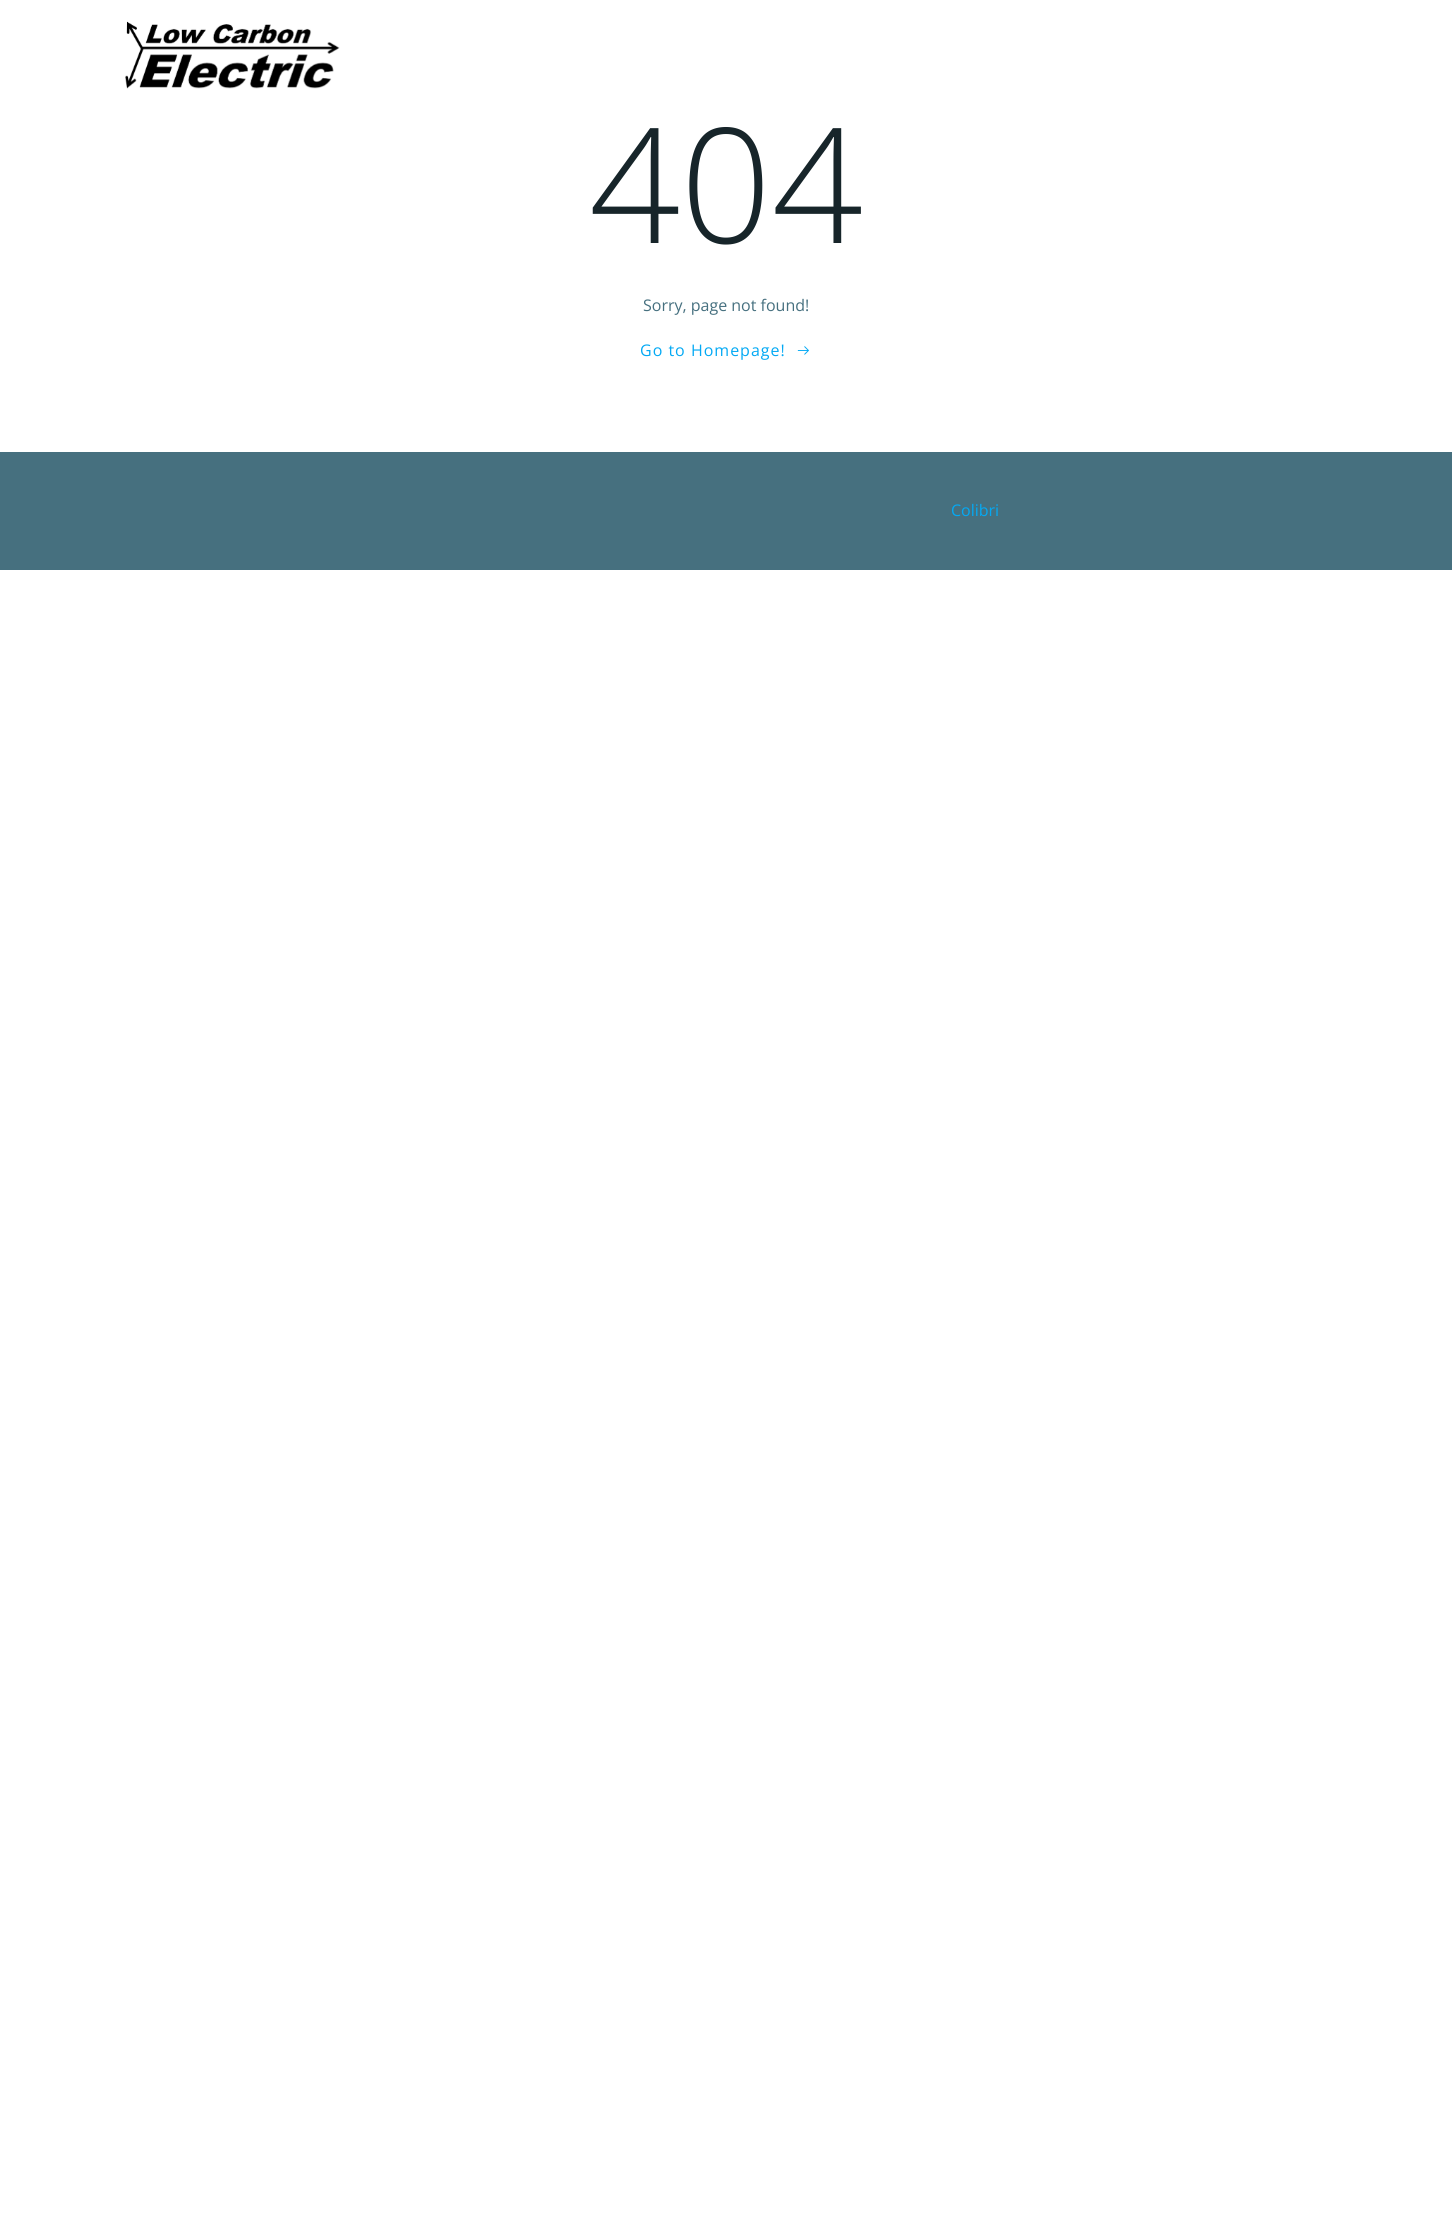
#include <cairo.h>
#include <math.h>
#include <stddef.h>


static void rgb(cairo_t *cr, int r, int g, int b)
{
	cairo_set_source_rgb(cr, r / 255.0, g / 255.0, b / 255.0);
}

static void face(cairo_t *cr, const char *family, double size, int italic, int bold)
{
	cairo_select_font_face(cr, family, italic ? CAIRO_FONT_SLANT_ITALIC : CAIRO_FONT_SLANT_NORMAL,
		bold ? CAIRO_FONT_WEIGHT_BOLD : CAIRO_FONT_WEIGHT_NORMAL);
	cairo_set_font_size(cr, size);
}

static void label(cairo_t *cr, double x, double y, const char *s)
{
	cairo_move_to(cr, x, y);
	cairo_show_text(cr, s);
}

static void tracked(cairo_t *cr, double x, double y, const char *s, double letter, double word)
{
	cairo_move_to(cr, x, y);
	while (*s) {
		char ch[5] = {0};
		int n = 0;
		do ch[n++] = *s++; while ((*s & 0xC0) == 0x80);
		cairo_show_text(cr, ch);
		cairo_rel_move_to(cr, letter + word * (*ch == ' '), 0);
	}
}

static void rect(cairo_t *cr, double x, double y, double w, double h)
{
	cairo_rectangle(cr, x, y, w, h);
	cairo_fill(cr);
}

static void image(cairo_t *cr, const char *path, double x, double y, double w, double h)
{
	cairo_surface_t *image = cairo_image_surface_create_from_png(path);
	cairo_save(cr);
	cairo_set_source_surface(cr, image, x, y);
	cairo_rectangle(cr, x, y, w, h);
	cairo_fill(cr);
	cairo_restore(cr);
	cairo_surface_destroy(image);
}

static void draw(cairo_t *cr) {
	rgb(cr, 255, 255, 255);
	cairo_paint(cr);
	image(cr, "image0.png", 125, 21, 215, 68);
	face(cr, "Open Sans Light", 160, 0, 0);
	rgb(cr, 23, 37, 42);
	label(cr, 589, 243, "404");
	face(cr, "Open Sans", 16, 0, 0);
	rgb(cr, 70, 112, 127);
	label(cr, 643, 311, "Sorry, page not found!");
	rgb(cr, 3, 169, 244);
	tracked(cr, 640, 356, "Go to Homepage!", 1, 0);
	image(cr, "image1.png", 797, 346, 12, 9);
	rgb(cr, 70, 112, 127);
	rect(cr, 0, 452, 1452, 118);
	rgb(cr, 3, 169, 244);
	label(cr, 951, 516, "Colibri");
}

int main(void) {
	cairo_surface_t *surface = cairo_image_surface_create(CAIRO_FORMAT_RGB24, 1452, 2218);
	cairo_t *cr = cairo_create(surface);
	cairo_font_options_t *options = cairo_font_options_create();
	cairo_font_options_set_hint_metrics(options, CAIRO_HINT_METRICS_OFF);
	cairo_font_options_set_hint_style(options, CAIRO_HINT_STYLE_NONE);
	cairo_set_font_options(cr, options);
	cairo_set_miter_limit(cr, 4);
	draw(cr);
	cairo_surface_write_to_png(surface, "render.png");
	cairo_font_options_destroy(options);
	cairo_destroy(cr);
	cairo_surface_destroy(surface);
	return 0;
}
